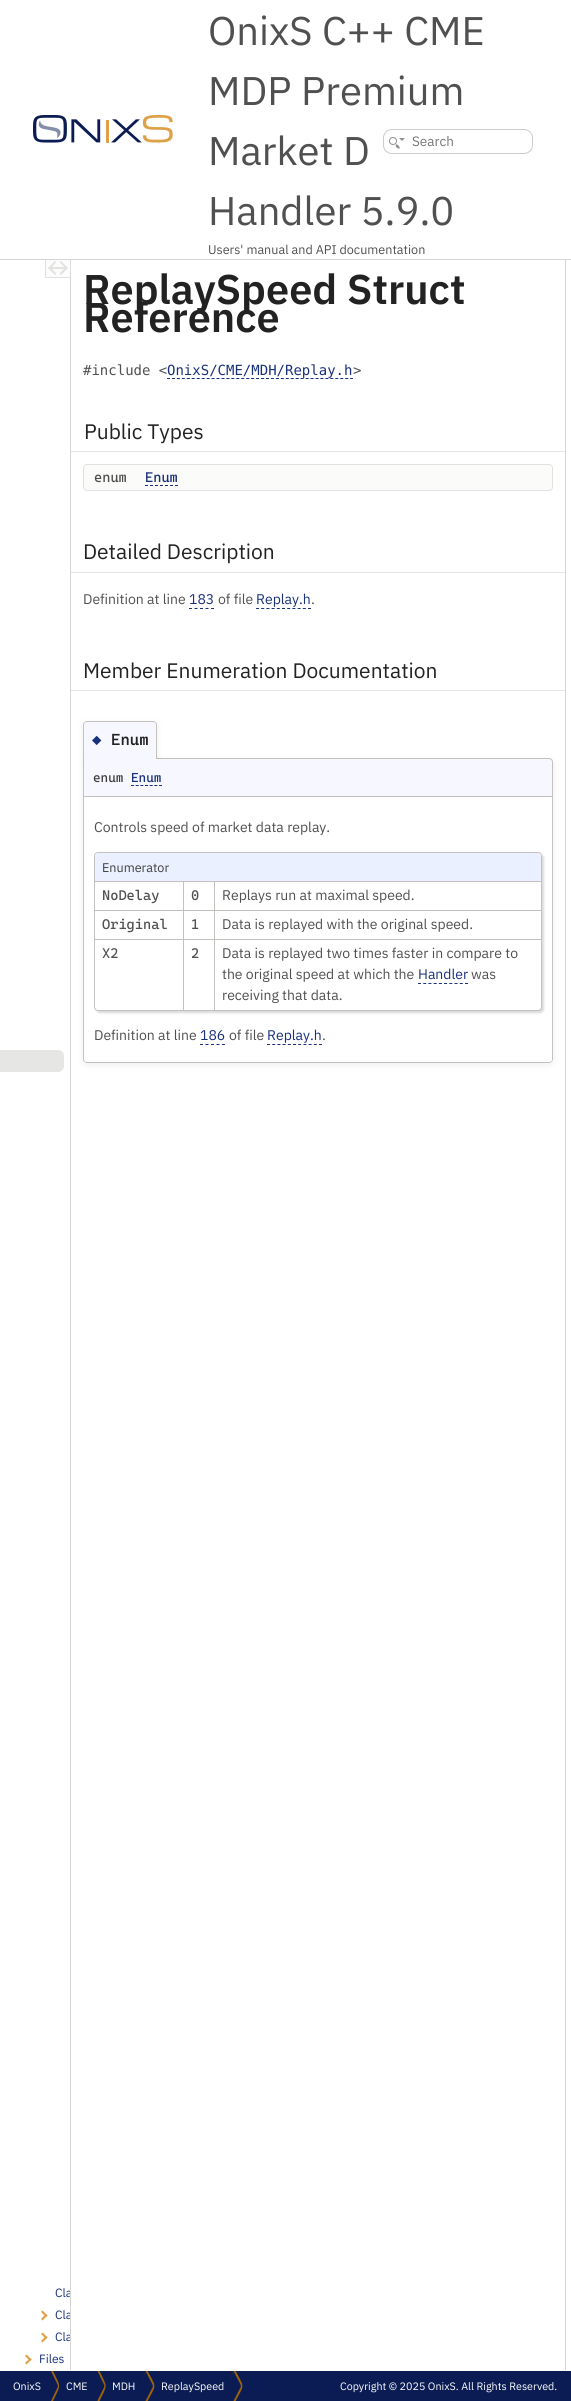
#include <cairo.h>
#include <math.h>
#include <stddef.h>


static void rgb(cairo_t *cr, int r, int g, int b)
{
	cairo_set_source_rgb(cr, r / 255.0, g / 255.0, b / 255.0);
}

static void face(cairo_t *cr, const char *family, double size, int italic, int bold)
{
	cairo_select_font_face(cr, family, italic ? CAIRO_FONT_SLANT_ITALIC : CAIRO_FONT_SLANT_NORMAL,
		bold ? CAIRO_FONT_WEIGHT_BOLD : CAIRO_FONT_WEIGHT_NORMAL);
	cairo_set_font_size(cr, size);
}

static void label(cairo_t *cr, double x, double y, const char *s)
{
	cairo_move_to(cr, x, y);
	cairo_show_text(cr, s);
}

static void rect(cairo_t *cr, double x, double y, double w, double h)
{
	cairo_rectangle(cr, x, y, w, h);
	cairo_fill(cr);
}

static void rrect(cairo_t *cr, double x, double y, double w, double h, double r)
{
	cairo_new_sub_path(cr);
	cairo_arc(cr, x + w - r, y + h - r, r, 0, M_PI / 2);
	cairo_arc(cr, x + r, y + h - r, r, M_PI / 2, M_PI);
	cairo_arc(cr, x + r, y + r, r, M_PI, 1.5 * M_PI);
	cairo_arc(cr, x + w - r, y + r, r, 1.5 * M_PI, 2 * M_PI);
	cairo_close_path(cr);
}

static void soft_shadow(cairo_t *cr, double x, double y, double w, double h, double r, double blur, double alpha)
{
	cairo_push_group_with_content(cr, CAIRO_CONTENT_ALPHA);
	cairo_set_operator(cr, CAIRO_OPERATOR_SOURCE);
	for (int i = 15; i >= -15 && fmin(w, h) + blur * i / 3 > 0; i -= 2) {
		double e = blur * i / 6;
		cairo_set_source_rgba(cr, 0, 0, 0, alpha * erfc((i - 1) / 8.5) / 2);
		rrect(cr, x - e, y - e, w + 2 * e, h + 2 * e, fmax(0, fmin(r + e + blur * .6, fmin(w, h) / 2 + e)));
		cairo_fill(cr);
	}
	cairo_pattern_t *soft = cairo_pop_group(cr);
	cairo_mask(cr, soft);
	cairo_pattern_destroy(soft);
}

static void image(cairo_t *cr, const char *path, double x, double y, double w, double h)
{
	cairo_surface_t *image = cairo_image_surface_create_from_png(path);
	cairo_save(cr);
	cairo_set_source_surface(cr, image, x, y);
	cairo_rectangle(cr, x, y, w, h);
	cairo_fill(cr);
	cairo_restore(cr);
	cairo_surface_destroy(image);
}

static void draw(cairo_t *cr) {
	rgb(cr, 255, 255, 255);
	cairo_paint(cr);
	rgb(cr, 252, 252, 252);
	rect(cr, 45, 260, 25, 18);
	rgb(cr, 214, 213, 211);
	rect(cr, 0, 259, 571, 1);
	image(cr, "image0.png", 33, 115, 140, 28);
	face(cr, "IBM Plex Sans", 40, 0, 0);
	rgb(cr, 80, 80, 80);
	label(cr, 208, 45, "OnixS C++ CME");
	label(cr, 208, 105, "MDP Premium");
	label(cr, 208, 165, "Market D");
	label(cr, 208, 225, "Handler 5.9.0");
	face(cr, "IBM Plex Sans", 12.6, 0, 0);
	label(cr, 208, 254, "Users' manual and API documentation");
	rrect(cr, 383.5, 129.5, 149, 24, 8.5);
	rgb(cr, 205, 203, 201);
	cairo_set_line_width(cr, 1);
	cairo_stroke(cr);
	cairo_arc(cr, 393, 141, 3.5, 0, 2 * M_PI);
	rgb(cr, 144, 144, 144);
	cairo_stroke(cr);
	cairo_new_path(cr);
	cairo_move_to(cr, 399, 138);
	cairo_line_to(cr, 405, 138);
	cairo_line_to(cr, 402, 141);
	cairo_close_path(cr);
	cairo_move_to(cr, 396, 144.5);
	cairo_curve_to(cr, 397, 143.5, 400.5, 147, 399.5, 148.5);
	cairo_curve_to(cr, 398, 149.5, 394.5, 146, 396, 144.5);
	cairo_close_path(cr);
	cairo_fill(cr);
	face(cr, "IBM Plex Sans", 13.5, 0, 0);
	rgb(cr, 117, 117, 117);
	label(cr, 412, 146, "Search");
	face(cr, "IBM Plex Sans SemiBold", 41.5, 0, 0);
	rgb(cr, 34, 34, 34);
	label(cr, 83, 304, "ReplaySpeed Struct");
	label(cr, 83, 332, "Reference");
	face(cr, "DejaVu Sans Mono", 14, 0, 0);
	rgb(cr, 80, 80, 80);
	label(cr, 83, 375, "#include <");
	rgb(cr, 25, 49, 123);
	label(cr, 167, 375, "OnixS/CME/MDH/Replay.h");
	cairo_new_path(cr);
	cairo_move_to(cr, 167, 378.5);
	cairo_line_to(cr, 353, 378.5);
	cairo_set_dash(cr, (double[]){3, 1.95}, 2, 0);
	cairo_stroke(cr);
	rgb(cr, 80, 80, 80);
	label(cr, 353, 375, ">");
	rgb(cr, 229, 228, 227);
	cairo_new_path(cr);
	cairo_move_to(cr, 71, 409);
	cairo_line_to(cr, 71, 452);
	cairo_line_to(cr, 539, 452);
	cairo_line_to(cr, 539, 451);
	cairo_line_to(cr, 84, 451);
	cairo_line_to(cr, 84, 409);
	cairo_close_path(cr);
	cairo_fill(cr);
	cairo_new_path(cr);
	cairo_move_to(cr, 97, 451);
	cairo_line_to(cr, 97, 452);
	cairo_line_to(cr, 565, 452);
	cairo_line_to(cr, 565, 409);
	cairo_line_to(cr, 552, 409);
	cairo_line_to(cr, 552, 451);
	cairo_close_path(cr);
	cairo_fill(cr);
	rgb(cr, 255, 255, 255);
	rect(cr, 71, 409, 13, 42);
	rect(cr, 552, 409, 13, 42);
	face(cr, "IBM Plex Sans", 21, 0, 0);
	rgb(cr, 34, 34, 34);
	label(cr, 84, 439, "Public Types");
	rgb(cr, 251, 251, 250);
	cairo_new_path(cr);
	cairo_move_to(cr, 87, 464);
	cairo_line_to(cr, 144, 464);
	cairo_line_to(cr, 144, 491);
	cairo_line_to(cr, 87, 491);
	cairo_curve_to(cr, 85, 491, 83, 489, 83, 487);
	cairo_line_to(cr, 83, 468);
	cairo_curve_to(cr, 83, 466, 85, 464, 87, 464);
	cairo_close_path(cr);
	cairo_fill(cr);
	rgb(cr, 226, 225, 223);
	cairo_set_fill_rule(cr, CAIRO_FILL_RULE_EVEN_ODD);
	cairo_new_path(cr);
	cairo_move_to(cr, 87, 464);
	cairo_line_to(cr, 144, 464);
	cairo_line_to(cr, 144, 491);
	cairo_line_to(cr, 87, 491);
	cairo_curve_to(cr, 85, 491, 83, 489, 83, 487);
	cairo_line_to(cr, 83, 468);
	cairo_curve_to(cr, 83, 466, 85, 464, 87, 464);
	cairo_close_path(cr);
	cairo_move_to(cr, 87, 465);
	cairo_line_to(cr, 144, 465);
	cairo_line_to(cr, 144, 490);
	cairo_line_to(cr, 87, 490);
	cairo_curve_to(cr, 85, 490, 84, 489, 84, 487);
	cairo_line_to(cr, 84, 468);
	cairo_curve_to(cr, 84, 466, 85, 465, 87, 465);
	cairo_close_path(cr);
	cairo_fill(cr);
	face(cr, "Cascadia Mono", 14, 0, 0);
	rgb(cr, 80, 80, 80);
	label(cr, 94, 482, "enum");
	rgb(cr, 251, 251, 250);
	cairo_new_path(cr);
	cairo_move_to(cr, 144, 464);
	cairo_line_to(cr, 549, 464);
	cairo_curve_to(cr, 551, 464, 553, 466, 553, 468);
	cairo_line_to(cr, 553, 487);
	cairo_curve_to(cr, 553, 489, 551, 491, 549, 491);
	cairo_line_to(cr, 144, 491);
	cairo_close_path(cr);
	cairo_fill(cr);
	rgb(cr, 226, 225, 223);
	cairo_new_path(cr);
	cairo_move_to(cr, 144, 464);
	cairo_line_to(cr, 549, 464);
	cairo_curve_to(cr, 551, 464, 553, 466, 553, 468);
	cairo_line_to(cr, 553, 487);
	cairo_curve_to(cr, 553, 489, 551, 491, 549, 491);
	cairo_line_to(cr, 144, 491);
	cairo_close_path(cr);
	cairo_move_to(cr, 144, 465);
	cairo_line_to(cr, 549, 465);
	cairo_curve_to(cr, 551, 465, 552, 466, 552, 468);
	cairo_line_to(cr, 552, 487);
	cairo_curve_to(cr, 552, 489, 551, 490, 549, 490);
	cairo_line_to(cr, 144, 490);
	cairo_close_path(cr);
	cairo_fill(cr);
	rgb(cr, 25, 49, 123);
	label(cr, 145, 482, "Enum");
	cairo_new_path(cr);
	cairo_move_to(cr, 145, 485.5);
	cairo_line_to(cr, 178, 485.5);
	cairo_set_dash(cr, (double[]){3, 2}, 2, 0);
	cairo_stroke(cr);
	rgb(cr, 229, 228, 227);
	cairo_set_fill_rule(cr, CAIRO_FILL_RULE_WINDING);
	cairo_new_path(cr);
	cairo_move_to(cr, 71, 529);
	cairo_line_to(cr, 71, 573);
	cairo_line_to(cr, 541, 573);
	cairo_line_to(cr, 541, 572);
	cairo_line_to(cr, 83, 572);
	cairo_line_to(cr, 83, 529);
	cairo_close_path(cr);
	cairo_fill(cr);
	cairo_new_path(cr);
	cairo_move_to(cr, 95, 572);
	cairo_line_to(cr, 95, 573);
	cairo_line_to(cr, 565, 573);
	cairo_line_to(cr, 565, 529);
	cairo_line_to(cr, 553, 529);
	cairo_line_to(cr, 553, 572);
	cairo_close_path(cr);
	cairo_fill(cr);
	rgb(cr, 255, 255, 255);
	rect(cr, 71, 529, 12, 43);
	rect(cr, 553, 529, 12, 43);
	face(cr, "IBM Plex Sans", 21, 0, 0);
	rgb(cr, 34, 34, 34);
	label(cr, 83, 559, "Detailed Description");
	face(cr, "IBM Plex Sans", 14, 0, 0);
	rgb(cr, 80, 80, 80);
	label(cr, 83, 604, "Definition at line");
	rgb(cr, 25, 49, 123);
	label(cr, 189, 604, "183");
	cairo_new_path(cr);
	cairo_move_to(cr, 189, 608.5);
	cairo_line_to(cr, 214, 608.5);
	cairo_set_dash(cr, (double[]){3, 2.5}, 2, 0);
	cairo_stroke(cr);
	rgb(cr, 80, 80, 80);
	label(cr, 218, 604, "of file");
	rgb(cr, 25, 49, 123);
	label(cr, 256, 604, "Replay.h");
	cairo_new_path(cr);
	cairo_move_to(cr, 256, 608.5);
	cairo_line_to(cr, 311, 608.5);
	cairo_set_dash(cr, (double[]){3, 2.2}, 2, 0);
	cairo_stroke(cr);
	rgb(cr, 80, 80, 80);
	label(cr, 311, 604, ".");
	rgb(cr, 229, 228, 227);
	cairo_new_path(cr);
	cairo_move_to(cr, 71, 648);
	cairo_line_to(cr, 71, 691);
	cairo_line_to(cr, 541, 691);
	cairo_line_to(cr, 541, 690);
	cairo_line_to(cr, 83, 690);
	cairo_line_to(cr, 83, 648);
	cairo_close_path(cr);
	cairo_fill(cr);
	cairo_new_path(cr);
	cairo_move_to(cr, 95, 690);
	cairo_line_to(cr, 95, 691);
	cairo_line_to(cr, 565, 691);
	cairo_line_to(cr, 565, 648);
	cairo_line_to(cr, 553, 648);
	cairo_line_to(cr, 553, 690);
	cairo_close_path(cr);
	cairo_fill(cr);
	rgb(cr, 255, 255, 255);
	rect(cr, 71, 648, 12, 42);
	rect(cr, 553, 648, 12, 42);
	face(cr, "IBM Plex Sans", 21, 0, 0);
	rgb(cr, 34, 34, 34);
	label(cr, 83, 678, "Member Enumeration Documentation");
	cairo_save(cr);
	cairo_set_fill_rule(cr, CAIRO_FILL_RULE_EVEN_ODD);
	cairo_new_path(cr);
	cairo_move_to(cr, 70, 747);
	cairo_line_to(cr, 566, 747);
	cairo_line_to(cr, 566, 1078);
	cairo_line_to(cr, 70, 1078);
	cairo_close_path(cr);
	cairo_move_to(cr, 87, 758);
	cairo_line_to(cr, 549, 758);
	cairo_curve_to(cr, 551, 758, 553, 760, 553, 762);
	cairo_line_to(cr, 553, 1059);
	cairo_curve_to(cr, 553, 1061, 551, 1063, 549, 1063);
	cairo_line_to(cr, 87, 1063);
	cairo_curve_to(cr, 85, 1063, 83, 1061, 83, 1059);
	cairo_line_to(cr, 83, 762);
	cairo_curve_to(cr, 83, 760, 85, 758, 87, 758);
	cairo_close_path(cr);
	cairo_clip(cr);
	rgb(cr, 0, 0, 0);
	soft_shadow(cr, 83, 760, 470, 305, 4, 4, 0.07);
	cairo_restore(cr);
	rgb(cr, 247, 247, 255);
	cairo_new_path(cr);
	cairo_move_to(cr, 83.5, 758.5);
	cairo_line_to(cr, 549, 758.5);
	cairo_curve_to(cr, 551, 758.5, 552.5, 760, 552.5, 762);
	cairo_line_to(cr, 552.5, 796.5);
	cairo_line_to(cr, 83.5, 796.5);
	cairo_close_path(cr);
	cairo_fill_preserve(cr);
	rgb(cr, 195, 193, 190);
	cairo_set_dash(cr, NULL, 0, 0);
	cairo_stroke(cr);
	rgb(cr, 214, 213, 211);
	rect(cr, 70, 278, 1, 2092);
	rgb(cr, 0, 0, 0);
	soft_shadow(cr, 83, 723, 74, 38, 4, 4, 0.07);
	rgb(cr, 247, 247, 255);
	cairo_new_path(cr);
	cairo_move_to(cr, 87, 721);
	cairo_line_to(cr, 153, 721);
	cairo_curve_to(cr, 155, 721, 157, 723, 157, 725);
	cairo_line_to(cr, 157, 759);
	cairo_line_to(cr, 83, 759);
	cairo_line_to(cr, 83, 725);
	cairo_curve_to(cr, 83, 723, 85, 721, 87, 721);
	cairo_close_path(cr);
	cairo_fill(cr);
	rgb(cr, 195, 193, 190);
	cairo_set_fill_rule(cr, CAIRO_FILL_RULE_EVEN_ODD);
	cairo_new_path(cr);
	cairo_move_to(cr, 87, 721);
	cairo_line_to(cr, 153, 721);
	cairo_curve_to(cr, 155, 721, 157, 723, 157, 725);
	cairo_line_to(cr, 157, 759);
	cairo_line_to(cr, 83, 759);
	cairo_line_to(cr, 83, 725);
	cairo_curve_to(cr, 83, 723, 85, 721, 87, 721);
	cairo_close_path(cr);
	cairo_move_to(cr, 87, 722);
	cairo_line_to(cr, 153, 722);
	cairo_curve_to(cr, 155, 722, 156, 723, 156, 725);
	cairo_line_to(cr, 156, 759);
	cairo_line_to(cr, 84, 759);
	cairo_line_to(cr, 84, 725);
	cairo_curve_to(cr, 84, 723, 85, 722, 87, 722);
	cairo_close_path(cr);
	cairo_fill(cr);
	face(cr, "Cascadia Mono", 16, 0, 0);
	rgb(cr, 25, 49, 123);
	label(cr, 92, 746, "◆");
	face(cr, "Cascadia Mono Medium", 16, 0, 0);
	rgb(cr, 34, 34, 34);
	label(cr, 111, 745, "Enum");
	rgb(cr, 247, 247, 255);
	cairo_new_path(cr);
	cairo_move_to(cr, 84, 759);
	cairo_line_to(cr, 164, 759);
	cairo_curve_to(cr, 167.5, 759, 170, 761.5, 170, 765);
	cairo_line_to(cr, 170, 769);
	cairo_line_to(cr, 84, 769);
	cairo_close_path(cr);
	cairo_fill(cr);
	face(cr, "Cascadia Mono", 13, 0, 0);
	rgb(cr, 63, 61, 58);
	label(cr, 93, 782, "enum");
	rgb(cr, 25, 49, 123);
	label(cr, 131, 782, "Enum");
	cairo_new_path(cr);
	cairo_move_to(cr, 131, 785.5);
	cairo_line_to(cr, 162, 785.5);
	cairo_set_dash(cr, (double[]){3, 1.67}, 2, 0);
	cairo_stroke(cr);
	rgb(cr, 195, 193, 190);
	cairo_new_path(cr);
	cairo_move_to(cr, 83, 797);
	cairo_line_to(cr, 553, 797);
	cairo_line_to(cr, 553, 1059);
	cairo_curve_to(cr, 553, 1061, 551, 1063, 549, 1063);
	cairo_line_to(cr, 87, 1063);
	cairo_curve_to(cr, 85, 1063, 83, 1061, 83, 1059);
	cairo_close_path(cr);
	cairo_move_to(cr, 84, 797);
	cairo_line_to(cr, 552, 797);
	cairo_line_to(cr, 552, 1059);
	cairo_curve_to(cr, 552, 1061, 551, 1062, 549, 1062);
	cairo_line_to(cr, 87, 1062);
	cairo_curve_to(cr, 85, 1062, 84, 1061, 84, 1059);
	cairo_close_path(cr);
	cairo_fill(cr);
	face(cr, "IBM Plex Sans", 14, 0, 0);
	rgb(cr, 80, 80, 80);
	label(cr, 94, 832, "Controls speed of market data replay.");
	cairo_save(cr);
	cairo_new_path(cr);
	cairo_move_to(cr, 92, 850);
	cairo_line_to(cr, 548, 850);
	cairo_line_to(cr, 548, 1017);
	cairo_line_to(cr, 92, 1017);
	cairo_close_path(cr);
	cairo_move_to(cr, 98, 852);
	cairo_line_to(cr, 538, 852);
	cairo_curve_to(cr, 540, 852, 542, 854, 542, 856);
	cairo_line_to(cr, 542, 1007);
	cairo_curve_to(cr, 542, 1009, 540, 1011, 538, 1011);
	cairo_line_to(cr, 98, 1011);
	cairo_curve_to(cr, 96, 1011, 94, 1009, 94, 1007);
	cairo_line_to(cr, 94, 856);
	cairo_curve_to(cr, 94, 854, 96, 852, 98, 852);
	cairo_close_path(cr);
	cairo_clip(cr);
	rgb(cr, 0, 0, 0);
	soft_shadow(cr, 96, 854, 448, 159, 4, 1, 0.15);
	cairo_restore(cr);
	rrect(cr, 94.5, 852.5, 447, 158, 3.5);
	rgb(cr, 195, 193, 190);
	cairo_set_dash(cr, NULL, 0, 0);
	cairo_stroke(cr);
	rgb(cr, 234, 240, 255);
	cairo_new_path(cr);
	cairo_move_to(cr, 99, 853);
	cairo_line_to(cr, 537, 853);
	cairo_curve_to(cr, 539, 853, 541, 855, 541, 857);
	cairo_line_to(cr, 541, 882);
	cairo_line_to(cr, 95, 882);
	cairo_line_to(cr, 95, 857);
	cairo_curve_to(cr, 95, 855, 97, 853, 99, 853);
	cairo_close_path(cr);
	cairo_fill(cr);
	rgb(cr, 195, 193, 190);
	rect(cr, 95, 881, 446, 1);
	face(cr, "IBM Plex Sans", 12.6, 0, 0);
	rgb(cr, 63, 61, 58);
	label(cr, 102, 872, "Enumerator");
	rgb(cr, 195, 193, 190);
	rect(cr, 183, 882, 1, 128);
	rect(cr, 95, 910, 89, 1);
	face(cr, "Cascadia Mono", 14, 0, 0);
	rgb(cr, 80, 80, 80);
	label(cr, 102, 900, "NoDelay");
	rgb(cr, 195, 193, 190);
	rect(cr, 214, 882, 1, 128);
	rect(cr, 184, 910, 357, 1);
	rgb(cr, 80, 80, 80);
	label(cr, 191, 900, "0");
	face(cr, "IBM Plex Sans", 14, 0, 0);
	label(cr, 222, 900, "Replays run at maximal speed.");
	rgb(cr, 195, 193, 190);
	rect(cr, 95, 939, 446, 1);
	face(cr, "Cascadia Mono", 14, 0, 0);
	rgb(cr, 80, 80, 80);
	label(cr, 102, 929, "Original");
	label(cr, 191, 929, "1");
	face(cr, "IBM Plex Sans", 14, 0, 0);
	label(cr, 222, 929, "Data is replayed with the original speed.");
	face(cr, "Cascadia Mono", 14, 0, 0);
	label(cr, 102, 958, "X2");
	label(cr, 191, 958, "2");
	face(cr, "IBM Plex Sans", 14, 0, 0);
	label(cr, 222, 958, "Data is replayed two times faster in compare to");
	label(cr, 222, 979, "the original speed at which the");
	rgb(cr, 25, 49, 123);
	label(cr, 418, 979, "Handler");
	cairo_new_path(cr);
	cairo_move_to(cr, 418, 983.5);
	cairo_line_to(cr, 468, 983.5);
	cairo_set_dash(cr, (double[]){3, 2.22}, 2, 0);
	cairo_stroke(cr);
	rgb(cr, 80, 80, 80);
	label(cr, 471, 979, "was");
	label(cr, 222, 1000, "receiving that data.");
	label(cr, 94, 1040, "Definition at line");
	rgb(cr, 25, 49, 123);
	label(cr, 200, 1040, "186");
	cairo_new_path(cr);
	cairo_move_to(cr, 200, 1044.5);
	cairo_line_to(cr, 225, 1044.5);
	cairo_set_dash(cr, (double[]){3, 2.5}, 2, 0);
	cairo_stroke(cr);
	rgb(cr, 80, 80, 80);
	label(cr, 229, 1040, "of file");
	rgb(cr, 25, 49, 123);
	label(cr, 267, 1040, "Replay.h");
	cairo_new_path(cr);
	cairo_move_to(cr, 267, 1044.5);
	cairo_line_to(cr, 322, 1044.5);
	cairo_set_dash(cr, (double[]){3, 2.2}, 2, 0);
	cairo_stroke(cr);
	rgb(cr, 80, 80, 80);
	label(cr, 322, 1040, ".");
	rgb(cr, 214, 213, 211);
	rect(cr, 565, 260, 1, 2110);
	rgb(cr, 240, 240, 238);
	rect(cr, 70, 260, 1, 18);
	cairo_save(cr);
	cairo_set_fill_rule(cr, CAIRO_FILL_RULE_WINDING);
	cairo_rectangle(cr, 0, 260, 77, 2110);
	cairo_clip(cr);
	cairo_rectangle(cr, 45.5, 259.5, 25, 18);
	cairo_set_source_rgba(cr, 0.839, 0.835, 0.827, 0.7);
	cairo_set_dash(cr, NULL, 0, 0);
	cairo_stroke(cr);
	cairo_restore(cr);
	rgb(cr, 226, 226, 224);
	cairo_set_fill_rule(cr, CAIRO_FILL_RULE_WINDING);
	cairo_new_path(cr);
	cairo_move_to(cr, 48, 268);
	cairo_line_to(cr, 55, 261);
	cairo_line_to(cr, 56.5, 262);
	cairo_line_to(cr, 49.5, 269.5);
	cairo_close_path(cr);
	cairo_fill(cr);
	cairo_new_path(cr);
	cairo_move_to(cr, 48, 268);
	cairo_line_to(cr, 49.5, 266.5);
	cairo_line_to(cr, 56.5, 273.5);
	cairo_line_to(cr, 55, 275);
	cairo_close_path(cr);
	cairo_move_to(cr, 59.5, 262);
	cairo_line_to(cr, 61, 261);
	cairo_line_to(cr, 68, 268);
	cairo_line_to(cr, 66.5, 269.5);
	cairo_close_path(cr);
	cairo_fill(cr);
	cairo_new_path(cr);
	cairo_move_to(cr, 59.5, 273.5);
	cairo_line_to(cr, 66.5, 266.5);
	cairo_line_to(cr, 68, 268);
	cairo_line_to(cr, 61, 275);
	cairo_close_path(cr);
	cairo_fill(cr);
	rect(cr, 50, 267, 16, 2);
	rgb(cr, 230, 230, 228);
	cairo_new_path(cr);
	cairo_move_to(cr, 0, 1050);
	cairo_line_to(cr, 58, 1050);
	cairo_curve_to(cr, 61.5, 1050, 64, 1052.5, 64, 1056);
	cairo_line_to(cr, 64, 1066);
	cairo_curve_to(cr, 64, 1069.5, 61.5, 1072, 58, 1072);
	cairo_line_to(cr, 0, 1072);
	cairo_close_path(cr);
	cairo_fill(cr);
	cairo_save(cr);
	cairo_rectangle(cr, 0, 260, 70, 2110);
	cairo_clip(cr);
	face(cr, "IBM Plex Sans", 12, 0, 0);
	rgb(cr, 25, 49, 123);
	label(cr, 55, 2297, "Cla");
	cairo_restore(cr);
	rgb(cr, 222, 161, 71);
	cairo_new_path(cr);
	cairo_move_to(cr, 41, 2312);
	cairo_line_to(cr, 42.5, 2310.5);
	cairo_line_to(cr, 47.5, 2315.5);
	cairo_line_to(cr, 46, 2317);
	cairo_close_path(cr);
	cairo_fill(cr);
	cairo_new_path(cr);
	cairo_move_to(cr, 41, 2319);
	cairo_line_to(cr, 46, 2314);
	cairo_line_to(cr, 47.5, 2315.5);
	cairo_line_to(cr, 42.5, 2320.5);
	cairo_close_path(cr);
	cairo_move_to(cr, 41, 2334);
	cairo_line_to(cr, 42.5, 2332.5);
	cairo_line_to(cr, 47.5, 2337.5);
	cairo_line_to(cr, 46, 2339);
	cairo_close_path(cr);
	cairo_fill(cr);
	cairo_save(cr);
	cairo_rectangle(cr, 0, 260, 70, 2110);
	cairo_clip(cr);
	face(cr, "IBM Plex Sans", 12, 0, 0);
	rgb(cr, 25, 49, 123);
	label(cr, 55, 2319, "Cla");
	cairo_restore(cr);
	face(cr, "IBM Plex Sans", 12, 0, 0);
	rgb(cr, 25, 49, 123);
	label(cr, 39, 2363, "Files");
	rgb(cr, 222, 161, 71);
	cairo_new_path(cr);
	cairo_move_to(cr, 41, 2341);
	cairo_line_to(cr, 46, 2336);
	cairo_line_to(cr, 47.5, 2337.5);
	cairo_line_to(cr, 42.5, 2342.5);
	cairo_close_path(cr);
	cairo_move_to(cr, 25, 2356);
	cairo_line_to(cr, 26.5, 2354.5);
	cairo_line_to(cr, 31.5, 2359.5);
	cairo_line_to(cr, 30, 2361);
	cairo_close_path(cr);
	cairo_fill(cr);
	cairo_save(cr);
	cairo_rectangle(cr, 0, 260, 70, 2110);
	cairo_clip(cr);
	rgb(cr, 25, 49, 123);
	label(cr, 55, 2341, "Cla");
	cairo_restore(cr);
	cairo_new_path(cr);
	cairo_move_to(cr, 25, 2363);
	cairo_line_to(cr, 30, 2358);
	cairo_line_to(cr, 31.5, 2359.5);
	cairo_line_to(cr, 26.5, 2364.5);
	cairo_close_path(cr);
	cairo_fill(cr);
	rgb(cr, 10, 28, 83);
	rect(cr, 0, 2371, 571, 30);
	face(cr, "IBM Plex Sans", 10.7, 0, 0);
	rgb(cr, 255, 255, 255);
	label(cr, 13, 2390, "OnixS");
	label(cr, 66, 2390, "CME");
	cairo_save(cr);
	cairo_rectangle(cr, 0, 2371, 571, 30);
	cairo_clip(cr);
	rgb(cr, 157, 100, 7);
	cairo_new_path(cr);
	cairo_move_to(cr, 52, 2369);
	cairo_line_to(cr, 51, 2371);
	cairo_line_to(cr, 57.5, 2384.5);
	cairo_curve_to(cr, 58, 2385.5, 58, 2386.5, 57.5, 2387.5);
	cairo_line_to(cr, 51, 2401);
	cairo_line_to(cr, 52, 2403);
	cairo_curve_to(cr, 61.5, 2383, 61.5, 2389, 52, 2369);
	cairo_close_path(cr);
	cairo_move_to(cr, 98.5, 2369);
	cairo_line_to(cr, 97.5, 2371);
	cairo_line_to(cr, 104, 2384.5);
	cairo_curve_to(cr, 104.5, 2385.5, 104.5, 2386.5, 104, 2387.5);
	cairo_line_to(cr, 97.5, 2400.5);
	cairo_line_to(cr, 98.5, 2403);
	cairo_curve_to(cr, 108, 2383, 108, 2389, 98.5, 2369);
	cairo_close_path(cr);
	cairo_fill(cr);
	cairo_restore(cr);
	label(cr, 112, 2390, "MDH");
	cairo_save(cr);
	cairo_rectangle(cr, 0, 2371, 571, 30);
	cairo_clip(cr);
	rgb(cr, 157, 100, 7);
	cairo_new_path(cr);
	cairo_move_to(cr, 146.5, 2369);
	cairo_curve_to(cr, 144.5, 2372.5, 143.5, 2376.5, 143, 2380.5);
	cairo_curve_to(cr, 143.5, 2377, 144.5, 2373.5, 145.5, 2371);
	cairo_line_to(cr, 152.5, 2384.5);
	cairo_curve_to(cr, 153, 2385.5, 153, 2386.5, 152.5, 2387.5);
	cairo_line_to(cr, 145.5, 2401);
	cairo_line_to(cr, 145.5, 2400.5);
	cairo_line_to(cr, 146.5, 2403);
	cairo_curve_to(cr, 157, 2383, 157, 2389, 146.5, 2369);
	cairo_close_path(cr);
	cairo_fill(cr);
	cairo_restore(cr);
	label(cr, 161, 2390, "ReplaySpeed");
	cairo_save(cr);
	cairo_rectangle(cr, 0, 2371, 571, 30);
	cairo_clip(cr);
	rgb(cr, 157, 100, 7);
	cairo_new_path(cr);
	cairo_move_to(cr, 234.5, 2369);
	cairo_curve_to(cr, 232.5, 2373, 231, 2377, 231, 2381.5);
	cairo_curve_to(cr, 231, 2377.5, 232, 2374, 233.5, 2371);
	cairo_line_to(cr, 240.5, 2384.5);
	cairo_curve_to(cr, 241, 2385.5, 241, 2386.5, 240.5, 2387.5);
	cairo_line_to(cr, 233.5, 2401);
	cairo_line_to(cr, 233.5, 2400.5);
	cairo_line_to(cr, 234.5, 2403);
	cairo_curve_to(cr, 245, 2383, 245, 2389, 234.5, 2369);
	cairo_close_path(cr);
	cairo_fill(cr);
	cairo_restore(cr);
	label(cr, 340, 2390, "Copyright © 2025 OnixS. All Rights Reserved.");
}

int main(void) {
	cairo_surface_t *surface = cairo_image_surface_create(CAIRO_FORMAT_RGB24, 571, 2401);
	cairo_t *cr = cairo_create(surface);
	cairo_font_options_t *options = cairo_font_options_create();
	cairo_font_options_set_hint_metrics(options, CAIRO_HINT_METRICS_OFF);
	cairo_font_options_set_hint_style(options, CAIRO_HINT_STYLE_NONE);
	cairo_set_font_options(cr, options);
	cairo_set_miter_limit(cr, 4);
	draw(cr);
	cairo_surface_write_to_png(surface, "render.png");
	cairo_font_options_destroy(options);
	cairo_destroy(cr);
	cairo_surface_destroy(surface);
	return 0;
}
